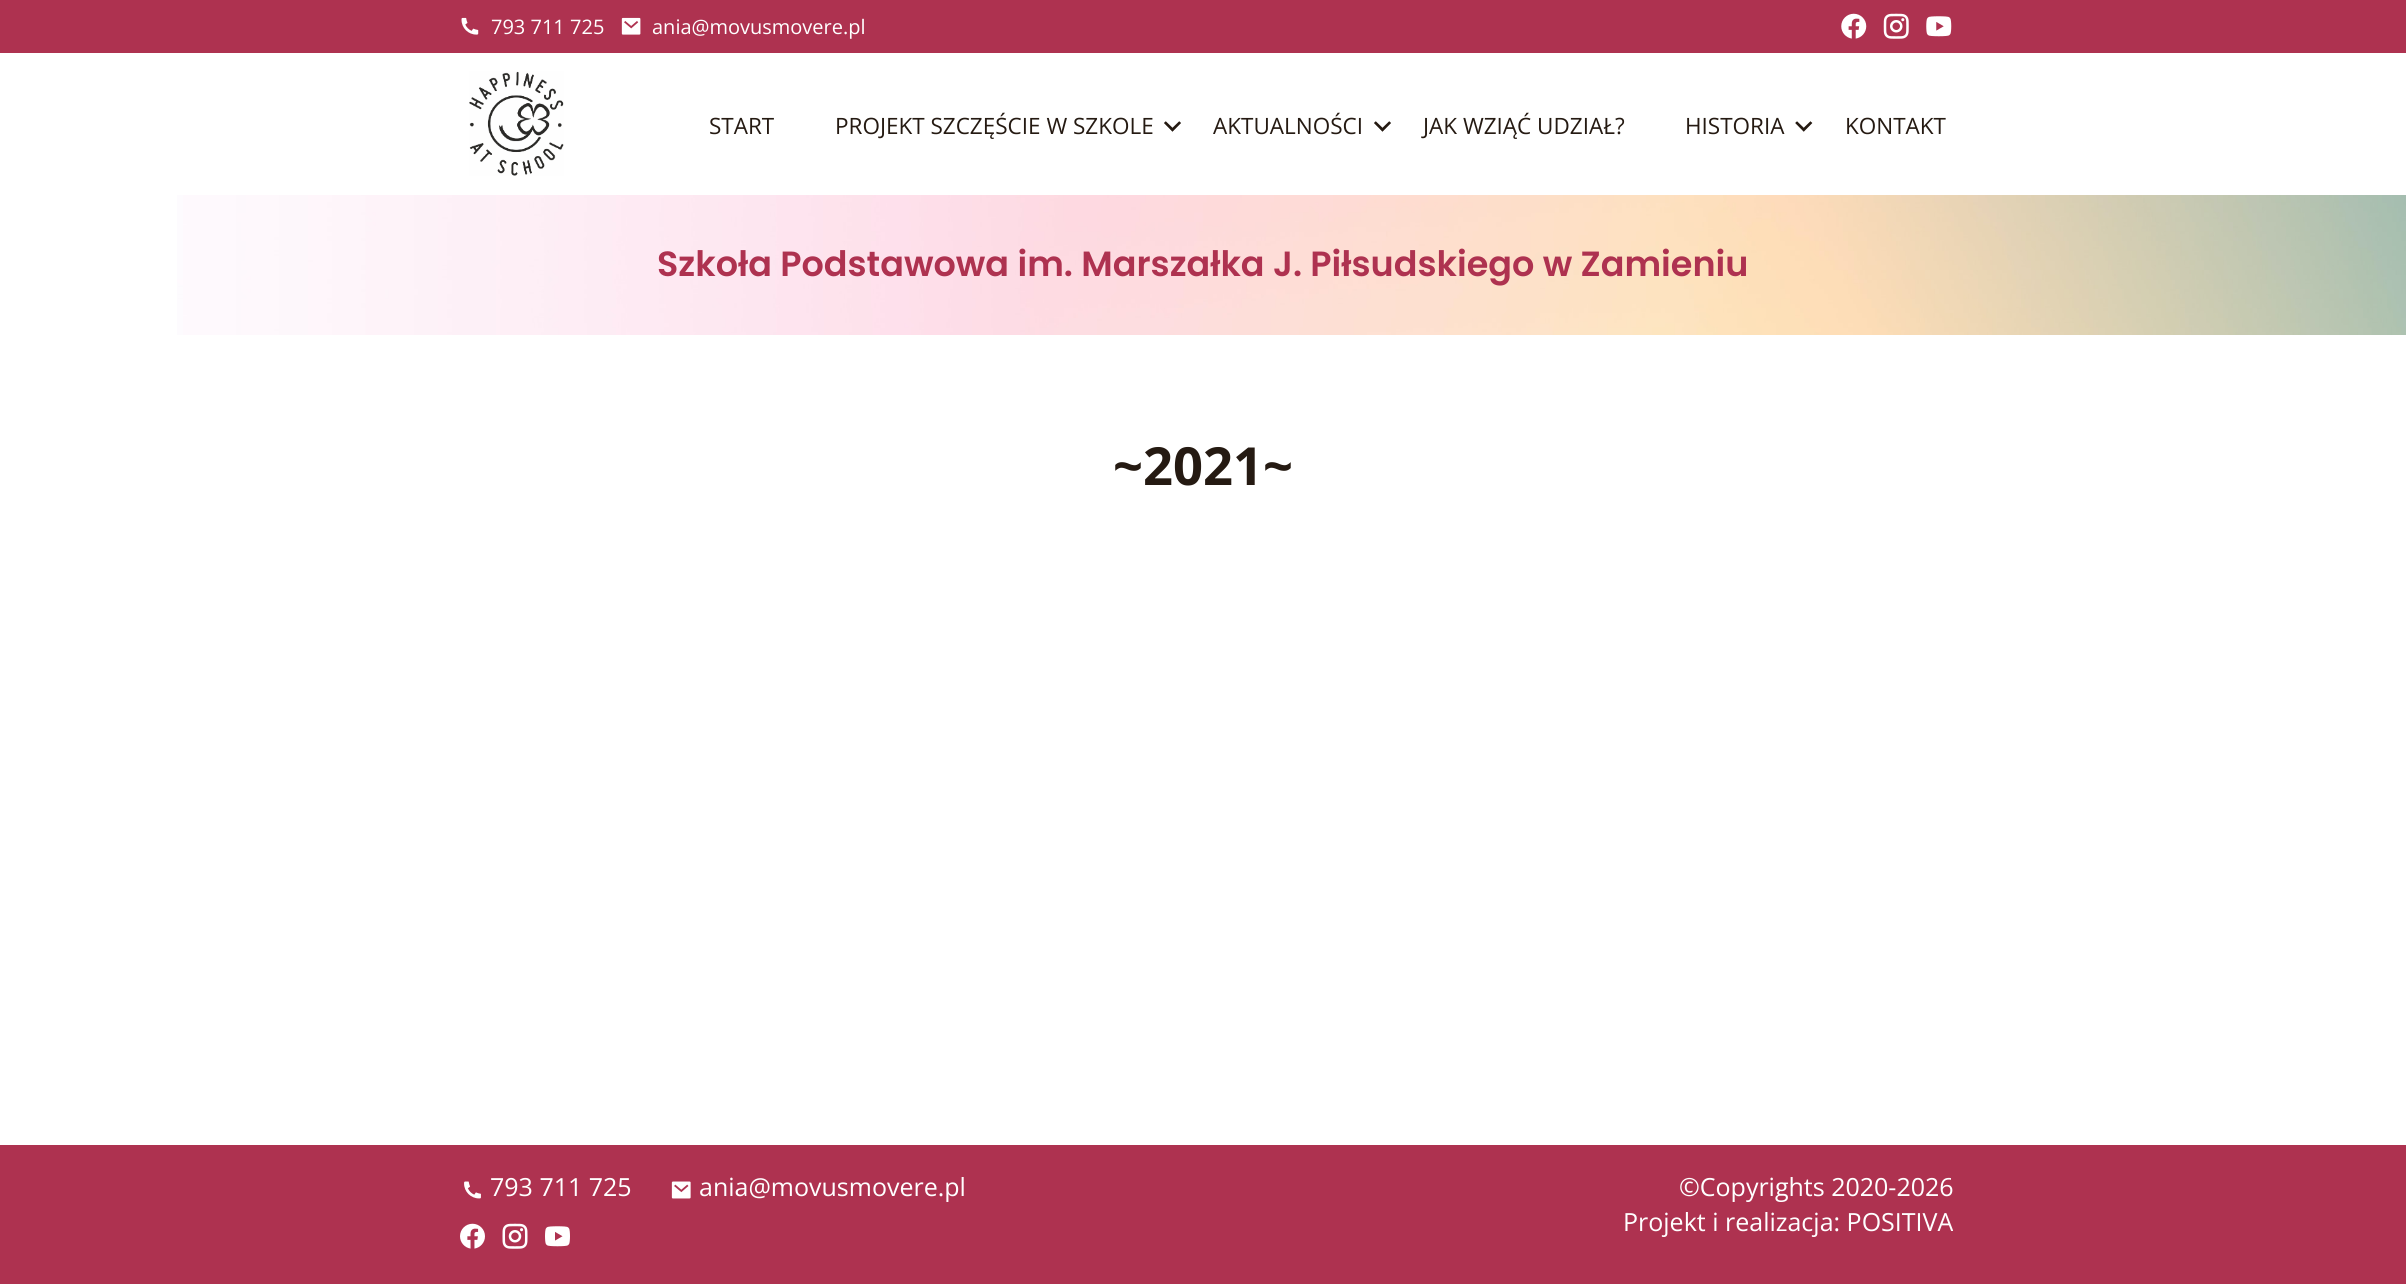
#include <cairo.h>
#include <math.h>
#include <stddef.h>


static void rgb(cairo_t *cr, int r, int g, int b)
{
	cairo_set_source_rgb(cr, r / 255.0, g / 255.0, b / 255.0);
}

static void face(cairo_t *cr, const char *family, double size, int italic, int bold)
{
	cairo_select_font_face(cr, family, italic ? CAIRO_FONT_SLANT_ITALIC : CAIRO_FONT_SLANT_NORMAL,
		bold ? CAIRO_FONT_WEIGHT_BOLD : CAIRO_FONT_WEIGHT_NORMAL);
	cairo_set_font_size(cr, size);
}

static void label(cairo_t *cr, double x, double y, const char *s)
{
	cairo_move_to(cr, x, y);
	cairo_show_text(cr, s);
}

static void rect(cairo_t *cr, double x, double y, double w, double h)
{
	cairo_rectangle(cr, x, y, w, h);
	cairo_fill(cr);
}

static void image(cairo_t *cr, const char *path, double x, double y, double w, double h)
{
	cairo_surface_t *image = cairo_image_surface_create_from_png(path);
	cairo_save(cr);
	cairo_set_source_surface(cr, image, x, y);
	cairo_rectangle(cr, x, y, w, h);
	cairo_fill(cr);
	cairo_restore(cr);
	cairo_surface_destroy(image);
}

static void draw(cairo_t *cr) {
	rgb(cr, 255, 255, 255);
	cairo_paint(cr);
	rgb(cr, 174, 50, 80);
	rect(cr, 0, 0, 2406, 53);
	image(cr, "image0.png", 461, 17, 18, 18);
	face(cr, "Open Sans", 20, 0, 0);
	rgb(cr, 255, 255, 255);
	label(cr, 491, 34, "793 711 725");
	image(cr, "image1.png", 621, 17, 20, 18);
	label(cr, 652, 34, "ania@movusmovere.pl");
	image(cr, "image2.png", 1841, 13, 26, 26);
	image(cr, "image3.png", 1883, 13, 26, 26);
	image(cr, "image4.png", 1926, 16, 26, 21);
	image(cr, "image5.png", 469, 71, 95, 105);
	face(cr, "Open Sans", 22.5, 0, 0);
	rgb(cr, 37, 26, 18);
	label(cr, 709, 134, "START");
	label(cr, 835, 134, "PROJEKT SZCZĘŚCIE W SZKOLE");
	image(cr, "image6.png", 1164, 121, 17, 11);
	label(cr, 1213, 134, "AKTUALNOŚCI");
	image(cr, "image6.png", 1374, 121, 17, 11);
	label(cr, 1423, 134, "JAK WZIĄĆ UDZIAŁ?");
	label(cr, 1685, 134, "HISTORIA");
	image(cr, "image7.png", 1795, 121, 18, 11);
	label(cr, 1845, 134, "KONTAKT");
	image(cr, "image8.png", 177, 195, 2229, 140);
	face(cr, "Poppins SemiBold", 35, 0, 0);
	rgb(cr, 174, 50, 80);
	label(cr, 657, 276, "Szkoła Podstawowa im. Marszałka J. Piłsudskiego w Zamieniu");
	face(cr, "Open Sans", 52.5, 0, 1);
	rgb(cr, 37, 26, 18);
	label(cr, 1113, 485, "~2021~");
	rgb(cr, 174, 50, 80);
	rect(cr, 0, 1145, 2406, 139);
	image(cr, "image9.png", 464, 1181, 17, 18);
	face(cr, "Open Sans", 25, 0, 0);
	rgb(cr, 255, 255, 255);
	label(cr, 490, 1196, "793 711 725");
	image(cr, "image10.png", 671, 1181, 20, 18);
	label(cr, 699, 1196, "ania@movusmovere.pl");
	image(cr, "image11.png", 460, 1223, 25, 26);
	image(cr, "image12.png", 502, 1223, 26, 26);
	image(cr, "image13.png", 545, 1226, 25, 21);
	label(cr, 1679, 1196, "©Copyrights 2020-2026");
	label(cr, 1623, 1231, "Projekt i realizacja: POSITIVA");
}

int main(void) {
	cairo_surface_t *surface = cairo_image_surface_create(CAIRO_FORMAT_RGB24, 2406, 1284);
	cairo_t *cr = cairo_create(surface);
	cairo_font_options_t *options = cairo_font_options_create();
	cairo_font_options_set_hint_metrics(options, CAIRO_HINT_METRICS_OFF);
	cairo_font_options_set_hint_style(options, CAIRO_HINT_STYLE_NONE);
	cairo_set_font_options(cr, options);
	cairo_set_miter_limit(cr, 4);
	draw(cr);
	cairo_surface_write_to_png(surface, "render.png");
	cairo_font_options_destroy(options);
	cairo_destroy(cr);
	cairo_surface_destroy(surface);
	return 0;
}
